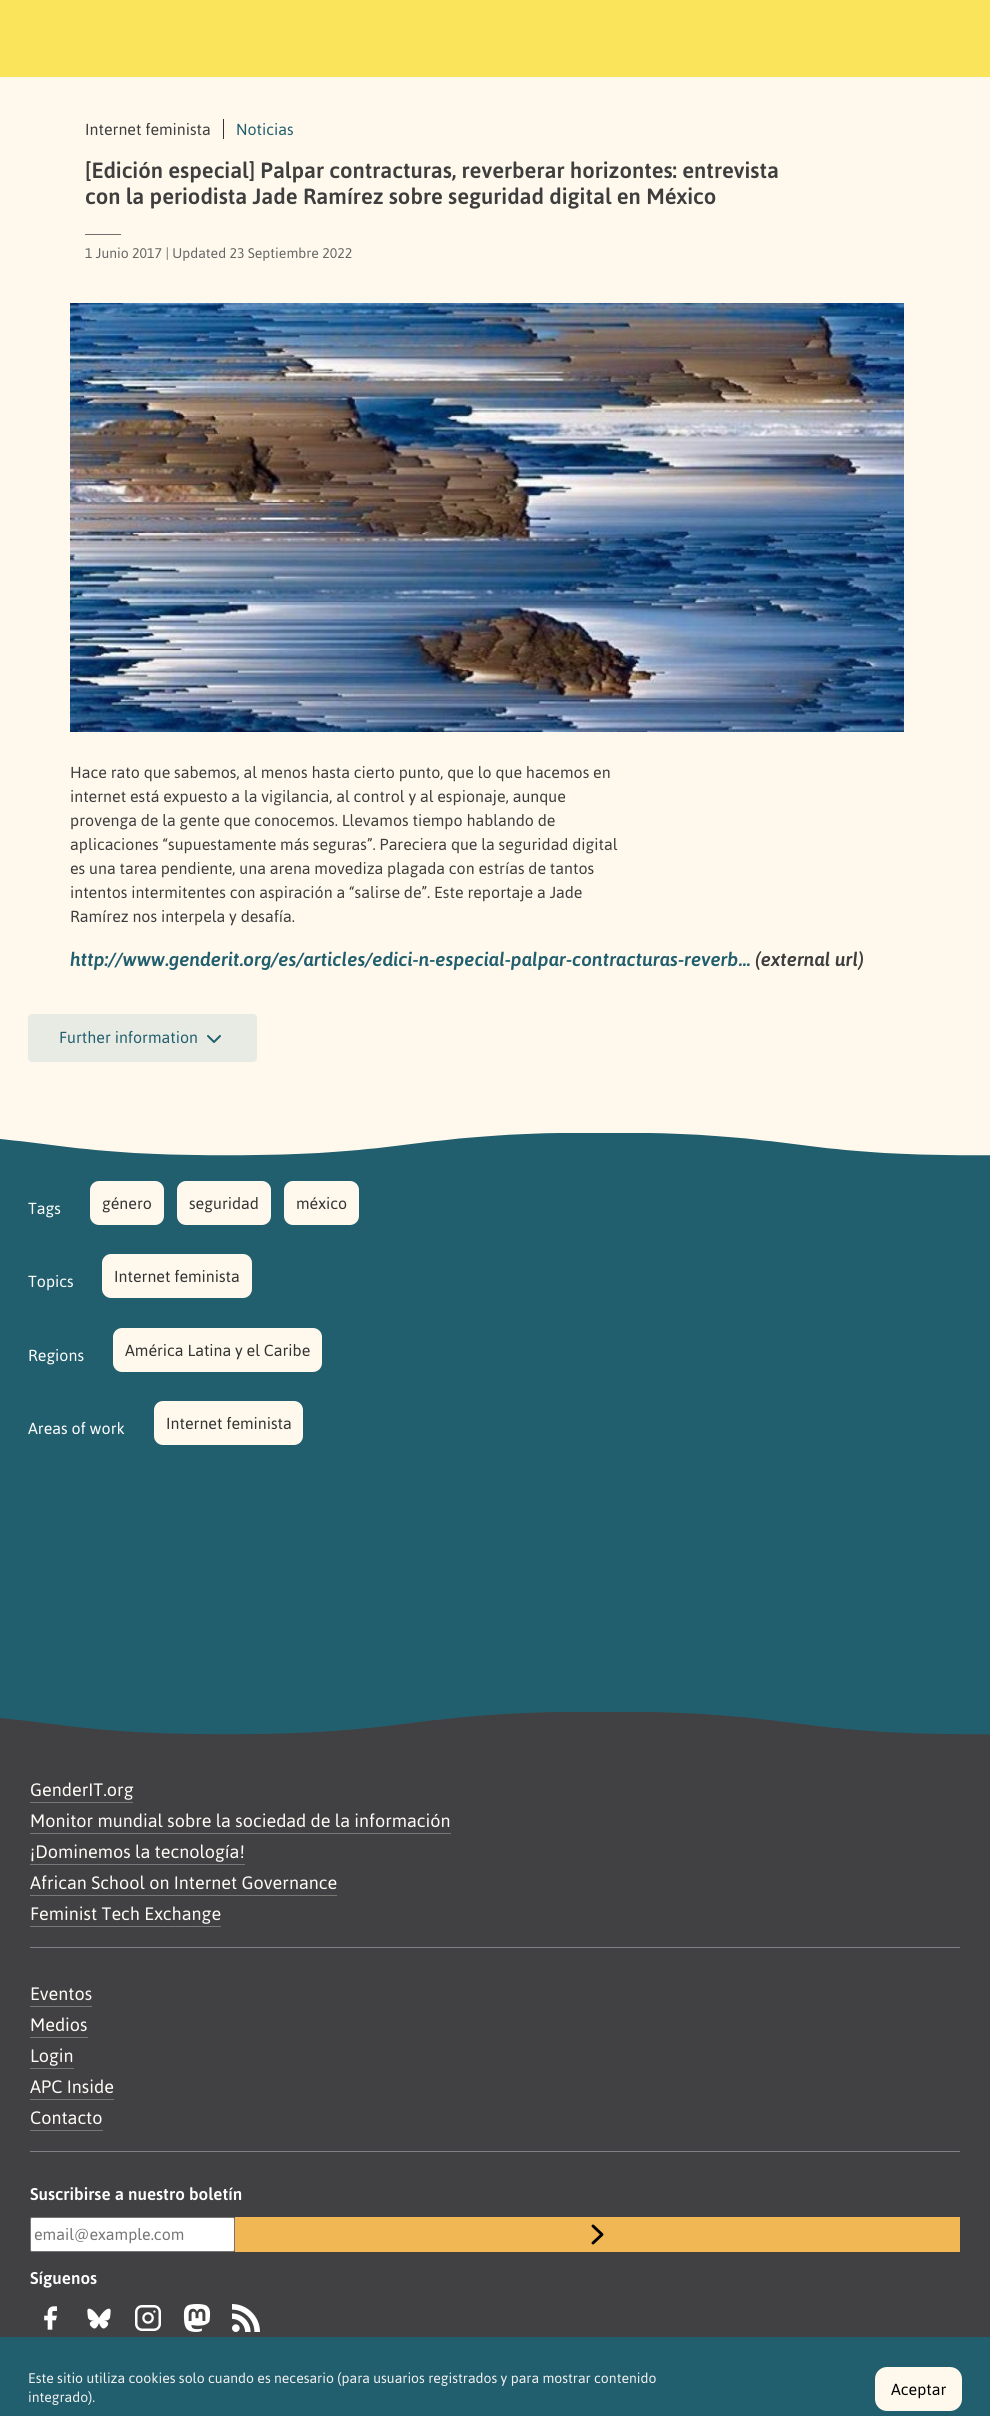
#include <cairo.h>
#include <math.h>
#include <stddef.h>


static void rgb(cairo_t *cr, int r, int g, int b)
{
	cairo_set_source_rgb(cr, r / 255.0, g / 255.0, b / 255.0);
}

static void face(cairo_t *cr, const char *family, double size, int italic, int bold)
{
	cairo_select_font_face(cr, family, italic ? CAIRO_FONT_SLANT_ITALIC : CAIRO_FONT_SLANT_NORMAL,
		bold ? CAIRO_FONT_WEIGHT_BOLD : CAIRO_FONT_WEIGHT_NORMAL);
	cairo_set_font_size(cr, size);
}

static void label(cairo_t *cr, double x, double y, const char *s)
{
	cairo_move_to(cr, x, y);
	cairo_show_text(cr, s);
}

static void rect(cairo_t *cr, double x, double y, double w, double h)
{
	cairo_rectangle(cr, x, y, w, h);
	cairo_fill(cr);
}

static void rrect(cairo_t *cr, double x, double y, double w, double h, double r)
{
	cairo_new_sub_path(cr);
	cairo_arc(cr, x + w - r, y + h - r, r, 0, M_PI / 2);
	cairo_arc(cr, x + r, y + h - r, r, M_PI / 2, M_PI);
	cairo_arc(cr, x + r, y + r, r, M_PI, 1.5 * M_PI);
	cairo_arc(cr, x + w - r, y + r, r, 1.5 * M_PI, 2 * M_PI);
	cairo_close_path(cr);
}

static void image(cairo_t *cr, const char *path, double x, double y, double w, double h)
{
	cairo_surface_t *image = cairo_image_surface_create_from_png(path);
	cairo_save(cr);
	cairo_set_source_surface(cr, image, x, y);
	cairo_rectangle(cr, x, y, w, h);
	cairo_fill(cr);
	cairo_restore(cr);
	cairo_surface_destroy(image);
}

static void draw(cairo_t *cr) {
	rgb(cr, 255, 249, 237);
	cairo_paint(cr);
	rgb(cr, 250, 228, 91);
	rect(cr, 0, 0, 990, 77);
	face(cr, "Asap", 16, 0, 0);
	rgb(cr, 62, 62, 62);
	label(cr, 85, 135, "Internet feminista");
	rgb(cr, 51, 51, 51);
	rect(cr, 223, 119, 1, 20);
	rgb(cr, 34, 95, 110);
	label(cr, 236, 135, "Noticias");
	face(cr, "Asap Medium", 22, 0, 0);
	rgb(cr, 62, 62, 62);
	label(cr, 85, 178, "[Edición especial] Palpar contracturas, reverberar horizontes: entrevista");
	label(cr, 85, 204, "con la periodista Jade Ramírez sobre seguridad digital en México");
	rgb(cr, 112, 112, 112);
	rect(cr, 85, 234, 36, 1);
	face(cr, "Asap", 14, 0, 0);
	rgb(cr, 102, 102, 102);
	label(cr, 85, 258, "1 Junio 2017 | Updated 23 Septiembre 2022");
	image(cr, "image0.png", 70, 303, 834, 429);
	face(cr, "Asap", 16, 0, 0);
	rgb(cr, 62, 62, 62);
	label(cr, 70, 778, "Hace rato que sabemos, al menos hasta cierto punto, que lo que hacemos en");
	label(cr, 70, 802, "internet está expuesto a la vigilancia, al control y al espionaje, aunque");
	label(cr, 70, 826, "provenga de la gente que conocemos. Llevamos tiempo hablando de");
	label(cr, 70, 850, "aplicaciones “supuestamente más seguras”. Pareciera que la seguridad digital");
	label(cr, 70, 874, "es una tarea pendiente, una arena movediza plagada con estrías de tantos");
	label(cr, 70, 898, "intentos intermitentes con aspiración a “salirse de”. Este reportaje a Jade");
	label(cr, 70, 922, "Ramírez nos interpela y desafía.");
	face(cr, "Asap Medium", 19, 1, 0);
	rgb(cr, 34, 95, 110);
	label(cr, 70, 966, "http://www.genderit.org/es/articles/edici-n-especial-palpar-contracturas-reverb…");
	rgb(cr, 62, 62, 62);
	label(cr, 755, 966, "(external url)");
	rgb(cr, 232, 235, 228);
	rrect(cr, 28.5, 1014.5, 228, 47, 3.5);
	cairo_fill_preserve(cr);
	cairo_set_line_width(cr, 1);
	cairo_stroke(cr);
	face(cr, "Asap", 16, 0, 0);
	rgb(cr, 34, 95, 110);
	label(cr, 59, 1043, "Further information");
	cairo_new_path(cr);
	cairo_move_to(cr, 208, 1036);
	cairo_line_to(cr, 214, 1042);
	cairo_line_to(cr, 220, 1036);
	cairo_set_line_width(cr, 2);
	cairo_set_line_cap(cr, CAIRO_LINE_CAP_ROUND);
	cairo_set_line_join(cr, CAIRO_LINE_JOIN_ROUND);
	cairo_stroke(cr);
	image(cr, "image1.png", 0, 1133, 990, 602);
	rgb(cr, 255, 255, 255);
	label(cr, 28, 1214, "Tags");
	rgb(cr, 255, 249, 237);
	rrect(cr, 90, 1181, 74, 44, 9);
	cairo_fill(cr);
	rgb(cr, 51, 51, 51);
	label(cr, 102, 1209, "género");
	rgb(cr, 255, 249, 237);
	rrect(cr, 177, 1181, 94, 44, 9);
	cairo_fill(cr);
	rgb(cr, 51, 51, 51);
	label(cr, 189, 1209, "seguridad");
	rgb(cr, 255, 249, 237);
	rrect(cr, 284, 1181, 75, 44, 9);
	cairo_fill(cr);
	rgb(cr, 51, 51, 51);
	label(cr, 296, 1209, "méxico");
	rgb(cr, 255, 255, 255);
	label(cr, 28, 1287, "Topics");
	rgb(cr, 255, 249, 237);
	rrect(cr, 102, 1254, 150, 44, 9);
	cairo_fill(cr);
	rgb(cr, 51, 51, 51);
	label(cr, 114, 1282, "Internet feminista");
	rgb(cr, 255, 255, 255);
	label(cr, 28, 1361, "Regions");
	rgb(cr, 255, 249, 237);
	rrect(cr, 113, 1328, 209, 44, 9);
	cairo_fill(cr);
	rgb(cr, 51, 51, 51);
	label(cr, 125, 1356, "América Latina y el Caribe");
	rgb(cr, 255, 255, 255);
	label(cr, 28, 1434, "Areas of work");
	rgb(cr, 255, 249, 237);
	rrect(cr, 154, 1401, 149, 44, 9);
	cairo_fill(cr);
	rgb(cr, 51, 51, 51);
	label(cr, 166, 1429, "Internet feminista");
	image(cr, "image2.png", 0, 1712, 990, 625);
	rgb(cr, 128, 130, 133);
	rect(cr, 30, 1947, 930, 1);
	face(cr, "Asap", 18, 0, 0);
	rgb(cr, 255, 252, 247);
	label(cr, 30, 1796, "GenderIT.org");
	rgb(cr, 119, 119, 119);
	rect(cr, 30, 1802, 103, 1);
	rgb(cr, 255, 252, 247);
	label(cr, 30, 1827, "Monitor mundial sobre la sociedad de la información");
	rgb(cr, 119, 119, 119);
	rect(cr, 30, 1833, 421, 1);
	rgb(cr, 255, 252, 247);
	label(cr, 30, 1858, "¡Dominemos la tecnología!");
	rgb(cr, 119, 119, 119);
	rect(cr, 30, 1864, 215, 1);
	rgb(cr, 255, 252, 247);
	label(cr, 30, 1889, "African School on Internet Governance");
	rgb(cr, 119, 119, 119);
	rect(cr, 30, 1895, 307, 1);
	rgb(cr, 255, 252, 247);
	label(cr, 30, 1920, "Feminist Tech Exchange");
	rgb(cr, 119, 119, 119);
	rect(cr, 30, 1926, 191, 1);
	rgb(cr, 128, 130, 133);
	rect(cr, 30, 2151, 930, 1);
	rgb(cr, 255, 252, 247);
	label(cr, 30, 2000, "Eventos");
	rgb(cr, 119, 119, 119);
	rect(cr, 30, 2006, 62, 1);
	rgb(cr, 255, 252, 247);
	label(cr, 30, 2031, "Medios");
	rgb(cr, 119, 119, 119);
	rect(cr, 30, 2037, 58, 1);
	rgb(cr, 255, 252, 247);
	label(cr, 30, 2062, "Login");
	rgb(cr, 119, 119, 119);
	rect(cr, 30, 2068, 44, 1);
	rgb(cr, 255, 252, 247);
	label(cr, 30, 2093, "APC Inside");
	rgb(cr, 119, 119, 119);
	rect(cr, 30, 2099, 84, 1);
	rgb(cr, 255, 252, 247);
	label(cr, 30, 2124, "Contacto");
	rgb(cr, 119, 119, 119);
	rect(cr, 30, 2130, 73, 1);
	face(cr, "Asap Medium", 17, 0, 0);
	rgb(cr, 255, 255, 255);
	label(cr, 30, 2200, "Suscribirse a nuestro boletín");
	rrect(cr, 30.5, 2217.5, 204, 34, 1.5);
	cairo_fill_preserve(cr);
	rgb(cr, 118, 118, 118);
	cairo_set_line_width(cr, 1);
	cairo_set_line_cap(cr, CAIRO_LINE_CAP_BUTT);
	cairo_set_line_join(cr, CAIRO_LINE_JOIN_MITER);
	cairo_stroke(cr);
	face(cr, "Asap", 16, 0, 0);
	rgb(cr, 117, 117, 117);
	label(cr, 34, 2240, "email@example.com");
	rgb(cr, 242, 183, 85);
	rect(cr, 235, 2217, 725, 35);
	cairo_new_path(cr);
	cairo_move_to(cr, 593, 2243);
	cairo_line_to(cr, 602, 2234.5);
	cairo_line_to(cr, 593, 2226);
	rgb(cr, 0, 0, 0);
	cairo_set_line_width(cr, 2.9);
	cairo_set_line_cap(cr, CAIRO_LINE_CAP_ROUND);
	cairo_set_line_join(cr, CAIRO_LINE_JOIN_ROUND);
	cairo_stroke(cr);
	face(cr, "Asap Medium", 17, 0, 0);
	rgb(cr, 255, 255, 255);
	label(cr, 30, 2284, "Síguenos");
	image(cr, "image3.png", 44, 2306, 13, 24);
	image(cr, "image4.png", 87, 2308, 24, 21);
	image(cr, "image5.png", 135, 2305, 26, 26);
	image(cr, "image6.png", 183, 2304, 28, 28);
	image(cr, "image7.png", 232, 2304, 28, 28);
	rgb(cr, 34, 95, 110);
	rect(cr, 0, 2337, 990, 79);
	face(cr, "Asap", 14, 0, 0);
	rgb(cr, 241, 241, 241);
	label(cr, 28, 2383, "Este sitio utiliza cookies solo cuando es necesario (para usuarios registrados y para mostrar contenido");
	label(cr, 28, 2402, "integrado).");
	rgb(cr, 255, 249, 237);
	rrect(cr, 875, 2367, 87, 44, 12);
	cairo_fill(cr);
	face(cr, "Asap", 16, 0, 0);
	rgb(cr, 0, 0, 0);
	label(cr, 891, 2395, "Aceptar");
}

int main(void) {
	cairo_surface_t *surface = cairo_image_surface_create(CAIRO_FORMAT_RGB24, 990, 2416);
	cairo_t *cr = cairo_create(surface);
	cairo_font_options_t *options = cairo_font_options_create();
	cairo_font_options_set_hint_metrics(options, CAIRO_HINT_METRICS_OFF);
	cairo_font_options_set_hint_style(options, CAIRO_HINT_STYLE_NONE);
	cairo_set_font_options(cr, options);
	cairo_set_miter_limit(cr, 4);
	draw(cr);
	cairo_surface_write_to_png(surface, "render.png");
	cairo_font_options_destroy(options);
	cairo_destroy(cr);
	cairo_surface_destroy(surface);
	return 0;
}
